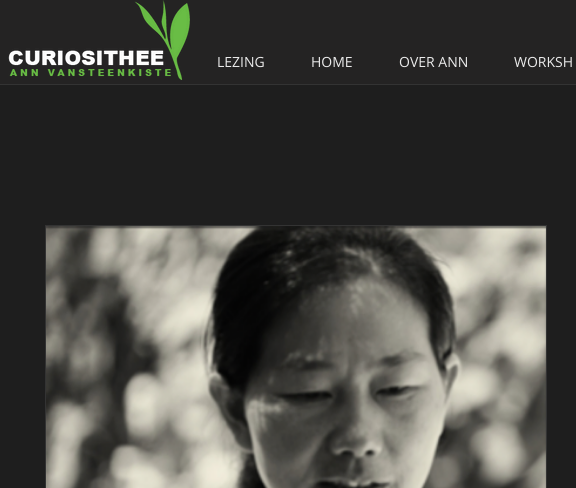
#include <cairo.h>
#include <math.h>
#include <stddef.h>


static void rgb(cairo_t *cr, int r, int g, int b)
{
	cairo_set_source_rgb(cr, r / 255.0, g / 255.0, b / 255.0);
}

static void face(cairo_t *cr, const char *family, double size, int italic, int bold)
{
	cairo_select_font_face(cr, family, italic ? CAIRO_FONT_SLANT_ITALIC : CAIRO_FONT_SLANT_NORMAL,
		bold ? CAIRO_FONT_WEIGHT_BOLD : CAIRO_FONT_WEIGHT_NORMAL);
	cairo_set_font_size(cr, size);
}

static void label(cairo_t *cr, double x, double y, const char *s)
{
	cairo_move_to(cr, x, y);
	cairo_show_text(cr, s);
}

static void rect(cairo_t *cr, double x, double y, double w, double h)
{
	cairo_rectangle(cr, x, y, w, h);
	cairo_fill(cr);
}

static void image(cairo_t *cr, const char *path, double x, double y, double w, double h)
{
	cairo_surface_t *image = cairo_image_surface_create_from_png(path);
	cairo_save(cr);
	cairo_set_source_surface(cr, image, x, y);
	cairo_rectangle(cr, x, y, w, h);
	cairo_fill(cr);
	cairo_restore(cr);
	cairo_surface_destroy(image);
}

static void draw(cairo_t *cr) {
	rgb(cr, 51, 51, 51);
	cairo_paint(cr);
	rgb(cr, 36, 35, 35);
	rect(cr, 0, 0, 576, 84);
	image(cr, "image0.png", 8, 0, 182, 80);
	face(cr, "Open Sans", 14, 0, 0);
	rgb(cr, 234, 234, 234);
	label(cr, 217, 67, "LEZING");
	label(cr, 311, 67, "HOME");
	label(cr, 399, 67, "OVER ANN");
	label(cr, 514, 67, "WORKSH");
	rgb(cr, 30, 30, 30);
	rect(cr, 0, 85, 576, 403);
	cairo_rectangle(cr, 45.5, 225.5, 501, 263);
	rgb(cr, 51, 51, 51);
	cairo_set_line_width(cr, 1);
	cairo_stroke(cr);
	image(cr, "image1.png", 46, 226, 500, 262);
}

int main(void) {
	cairo_surface_t *surface = cairo_image_surface_create(CAIRO_FORMAT_RGB24, 576, 488);
	cairo_t *cr = cairo_create(surface);
	cairo_font_options_t *options = cairo_font_options_create();
	cairo_font_options_set_hint_metrics(options, CAIRO_HINT_METRICS_OFF);
	cairo_font_options_set_hint_style(options, CAIRO_HINT_STYLE_NONE);
	cairo_set_font_options(cr, options);
	cairo_set_miter_limit(cr, 4);
	draw(cr);
	cairo_surface_write_to_png(surface, "render.png");
	cairo_font_options_destroy(options);
	cairo_destroy(cr);
	cairo_surface_destroy(surface);
	return 0;
}
